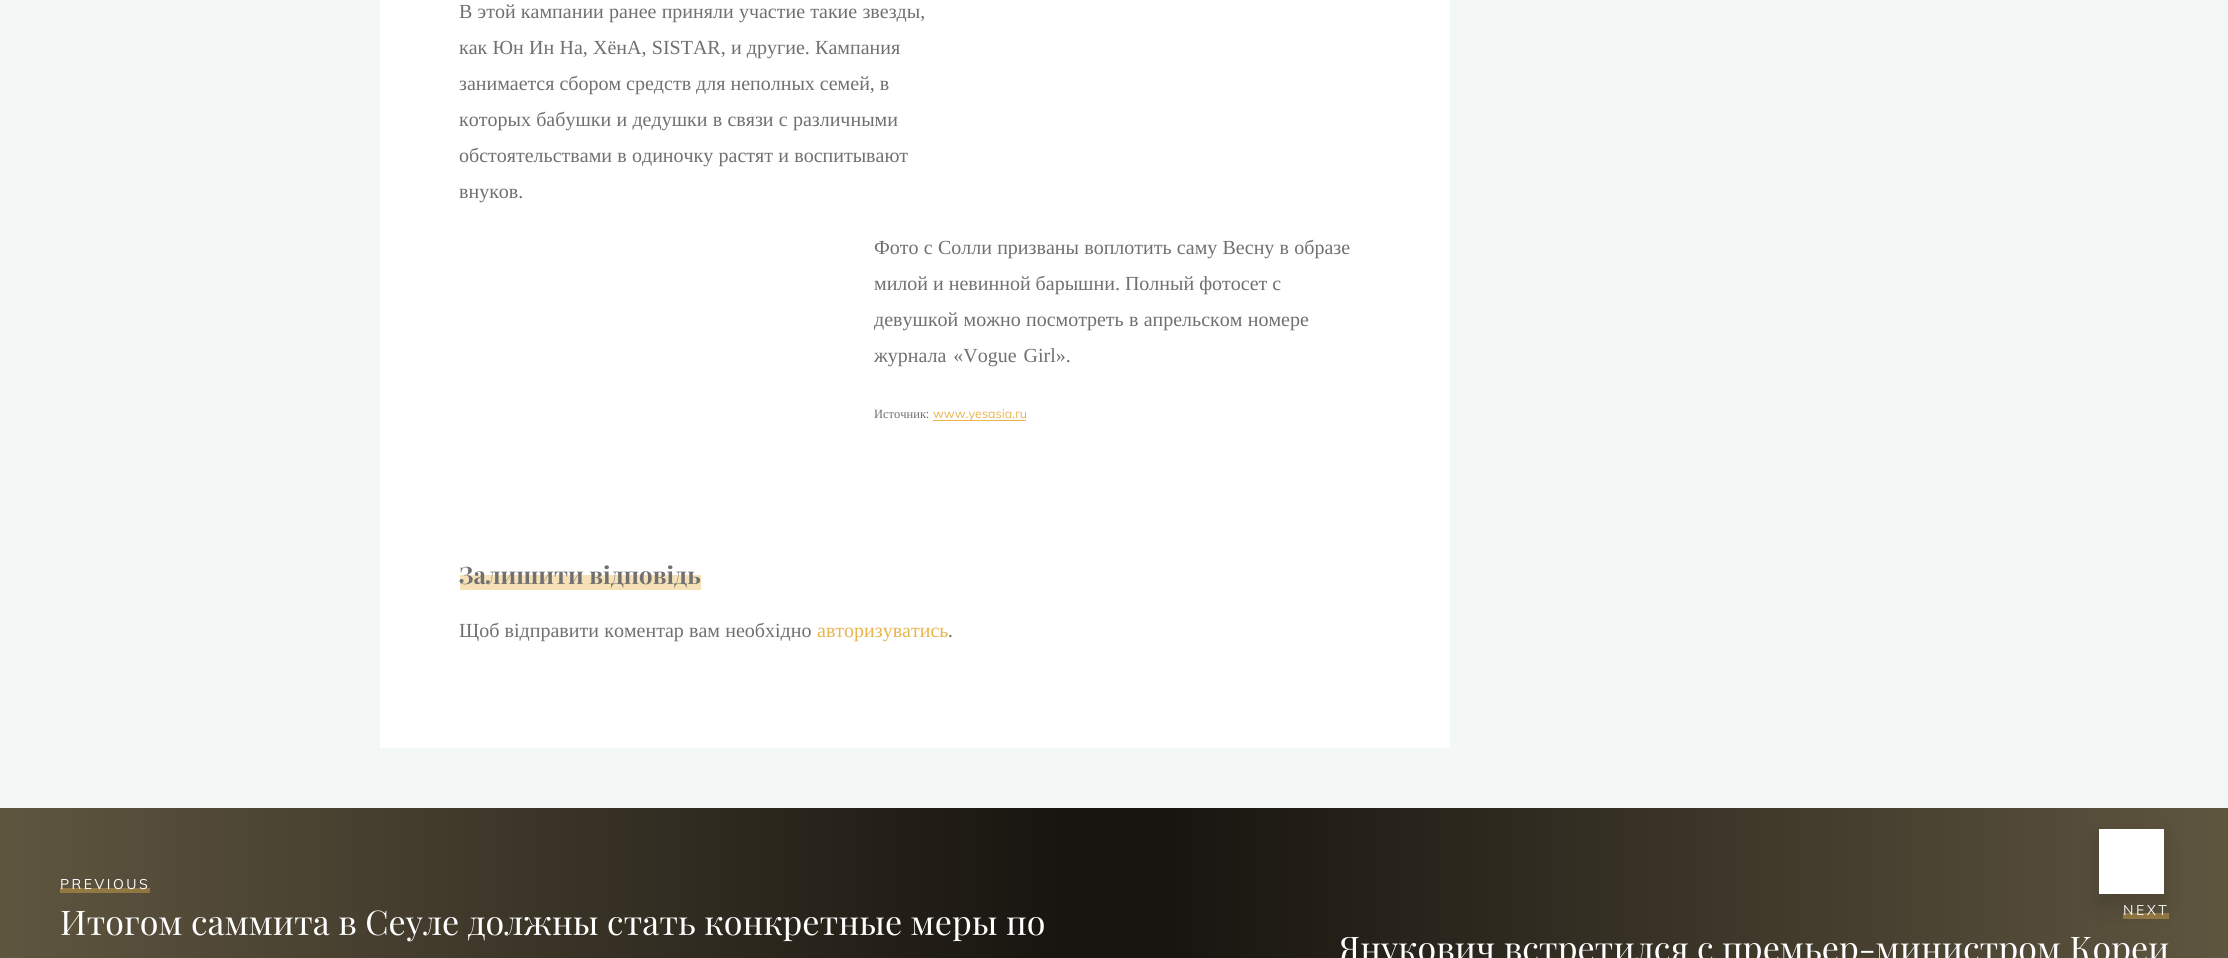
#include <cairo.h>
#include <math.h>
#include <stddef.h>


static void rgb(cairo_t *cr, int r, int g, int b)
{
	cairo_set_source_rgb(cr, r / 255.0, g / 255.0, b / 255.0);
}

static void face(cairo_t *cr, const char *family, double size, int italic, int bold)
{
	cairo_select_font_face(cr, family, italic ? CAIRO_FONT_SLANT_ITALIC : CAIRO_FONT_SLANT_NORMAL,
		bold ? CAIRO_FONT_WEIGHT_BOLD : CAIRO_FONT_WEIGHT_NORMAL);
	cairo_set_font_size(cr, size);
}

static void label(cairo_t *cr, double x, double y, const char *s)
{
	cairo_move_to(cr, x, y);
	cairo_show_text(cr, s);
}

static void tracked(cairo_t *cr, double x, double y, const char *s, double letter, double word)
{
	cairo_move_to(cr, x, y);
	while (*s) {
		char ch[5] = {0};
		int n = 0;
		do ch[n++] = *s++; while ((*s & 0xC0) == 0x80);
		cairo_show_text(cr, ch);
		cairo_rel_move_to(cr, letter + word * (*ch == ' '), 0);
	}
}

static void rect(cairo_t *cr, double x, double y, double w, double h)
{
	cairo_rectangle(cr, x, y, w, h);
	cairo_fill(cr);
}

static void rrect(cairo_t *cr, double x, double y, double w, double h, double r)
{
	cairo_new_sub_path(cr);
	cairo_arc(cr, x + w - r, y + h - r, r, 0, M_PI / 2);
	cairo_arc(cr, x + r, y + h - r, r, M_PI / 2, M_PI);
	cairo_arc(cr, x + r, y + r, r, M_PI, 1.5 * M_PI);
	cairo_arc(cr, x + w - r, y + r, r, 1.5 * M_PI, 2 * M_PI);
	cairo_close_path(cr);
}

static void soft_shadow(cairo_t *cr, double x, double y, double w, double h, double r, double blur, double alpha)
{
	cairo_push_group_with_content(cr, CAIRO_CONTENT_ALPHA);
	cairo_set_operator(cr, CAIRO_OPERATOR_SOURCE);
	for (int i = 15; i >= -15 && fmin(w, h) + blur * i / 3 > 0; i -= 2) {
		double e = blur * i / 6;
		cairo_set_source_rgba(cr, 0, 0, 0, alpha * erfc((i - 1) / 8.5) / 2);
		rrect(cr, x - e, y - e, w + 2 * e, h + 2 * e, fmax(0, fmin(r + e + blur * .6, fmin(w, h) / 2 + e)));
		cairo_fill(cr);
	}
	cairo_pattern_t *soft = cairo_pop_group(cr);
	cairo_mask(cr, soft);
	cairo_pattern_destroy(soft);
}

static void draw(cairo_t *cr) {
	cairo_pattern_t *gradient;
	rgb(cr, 243, 247, 246);
	cairo_paint(cr);
	rgb(cr, 255, 255, 255);
	rect(cr, 380, 0, 1070, 748);
	face(cr, "Liberation Serif", 20, 0, 0);
	rgb(cr, 112, 112, 112);
	tracked(cr, 459, 18, "В этой кампании ранее приняли участие такие звезды,", 0, 0.25);
	tracked(cr, 459, 54, "как Юн Ин На, ХёнА, SISTAR, и другие. Кампания", 0, 0.25);
	label(cr, 459, 90, "занимается сбором средств для неполных семей, в");
	tracked(cr, 459, 126, "которых бабушки и дедушки в связи с различными", 0, 0.25);
	tracked(cr, 459, 162, "обстоятельствами в одиночку растят и воспитывают", 0, 0.25);
	label(cr, 459, 198, "внуков.");
	tracked(cr, 874, 254, "Фото с Солли призваны воплотить саму Весну в образе", 0, 0.25);
	label(cr, 874, 290, "милой и невинной барышни. Полный фотосет с");
	tracked(cr, 874, 326, "девушкой можно посмотреть в апрельском номере", 0, 0.25);
	tracked(cr, 874, 362, "журнала «Vogue Girl».", 0, 2);
	face(cr, "Liberation Serif", 12.5, 0, 0);
	label(cr, 874, 418, "Источник");
	face(cr, "Muli", 12.5, 0, 0);
	label(cr, 926, 418, ":");
	rgb(cr, 233, 180, 76);
	rect(cr, 933, 420, 93, 1);
	label(cr, 933, 418, "www.yesasia.ru");
	rgb(cr, 246, 225, 183);
	rect(cr, 460, 575, 241, 15);
	face(cr, "Playfair Display", 24, 0, 1);
	rgb(cr, 112, 112, 112);
	label(cr, 459, 584, "Залишити відповідь");
	face(cr, "Liberation Serif", 20, 0, 0);
	tracked(cr, 459, 637, "Щоб відправити коментар вам необхідно", 0, 0.25);
	rgb(cr, 233, 180, 76);
	label(cr, 817, 637, "авторизуватись");
	face(cr, "Muli", 20, 0, 0);
	rgb(cr, 112, 112, 112);
	label(cr, 948, 637, ".");
	gradient = cairo_pattern_create_linear(0, 933, 1115, 933);
	cairo_pattern_add_color_stop_rgba(gradient, 0, 0.373, 0.337, 0.251, 1);
	cairo_pattern_add_color_stop_rgba(gradient, 0.95, 0.094, 0.082, 0.063, 1);
	cairo_set_source(cr, gradient);
	cairo_pattern_destroy(gradient);
	rect(cr, 0, 808, 1115, 150);
	gradient = cairo_pattern_create_linear(0, 933, 1115, 933);
	cairo_pattern_add_color_stop_rgba(gradient, 0, 0.588, 0.486, 0.271, 1);
	cairo_pattern_add_color_stop_rgba(gradient, 0.95, 0.424, 0.333, 0.157, 1);
	cairo_set_source(cr, gradient);
	cairo_pattern_destroy(gradient);
	rect(cr, 60, 888, 90, 5);
	face(cr, "Muli", 14, 0, 0);
	rgb(cr, 255, 255, 255);
	tracked(cr, 60, 889, "PREVIOUS", 2.5, 0);
	face(cr, "Playfair Display", 34, 0, 0);
	label(cr, 60, 935, "Итогом саммита в Сеуле должны стать конкретные меры по");
	gradient = cairo_pattern_create_linear(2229, 933, 1115, 933);
	cairo_pattern_add_color_stop_rgba(gradient, 0, 0.373, 0.337, 0.251, 1);
	cairo_pattern_add_color_stop_rgba(gradient, 0.95, 0.094, 0.082, 0.063, 1);
	cairo_set_source(cr, gradient);
	cairo_pattern_destroy(gradient);
	rect(cr, 1115, 808, 1113, 150);
	gradient = cairo_pattern_create_linear(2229, 933, 1115, 933);
	cairo_pattern_add_color_stop_rgba(gradient, 0, 0.588, 0.486, 0.271, 1);
	cairo_pattern_add_color_stop_rgba(gradient, 0.95, 0.424, 0.333, 0.157, 1);
	cairo_set_source(cr, gradient);
	cairo_pattern_destroy(gradient);
	rect(cr, 2123, 913, 46, 6);
	face(cr, "Muli", 14, 0, 0);
	rgb(cr, 255, 255, 255);
	tracked(cr, 2123, 915, "NEXT", 2.5, 0);
	face(cr, "Playfair Display", 34, 0, 0);
	label(cr, 1338, 961, "Янукович встретился с премьер-министром Кореи");
	rgb(cr, 0, 0, 0);
	soft_shadow(cr, 2099, 841, 65, 65, 0, 12.5, 0.15);
	rgb(cr, 255, 255, 255);
	rect(cr, 2099, 829, 65, 65);
}

int main(void) {
	cairo_surface_t *surface = cairo_image_surface_create(CAIRO_FORMAT_RGB24, 2228, 958);
	cairo_t *cr = cairo_create(surface);
	cairo_font_options_t *options = cairo_font_options_create();
	cairo_font_options_set_hint_metrics(options, CAIRO_HINT_METRICS_OFF);
	cairo_font_options_set_hint_style(options, CAIRO_HINT_STYLE_NONE);
	cairo_set_font_options(cr, options);
	cairo_set_miter_limit(cr, 4);
	draw(cr);
	cairo_surface_write_to_png(surface, "render.png");
	cairo_font_options_destroy(options);
	cairo_destroy(cr);
	cairo_surface_destroy(surface);
	return 0;
}
